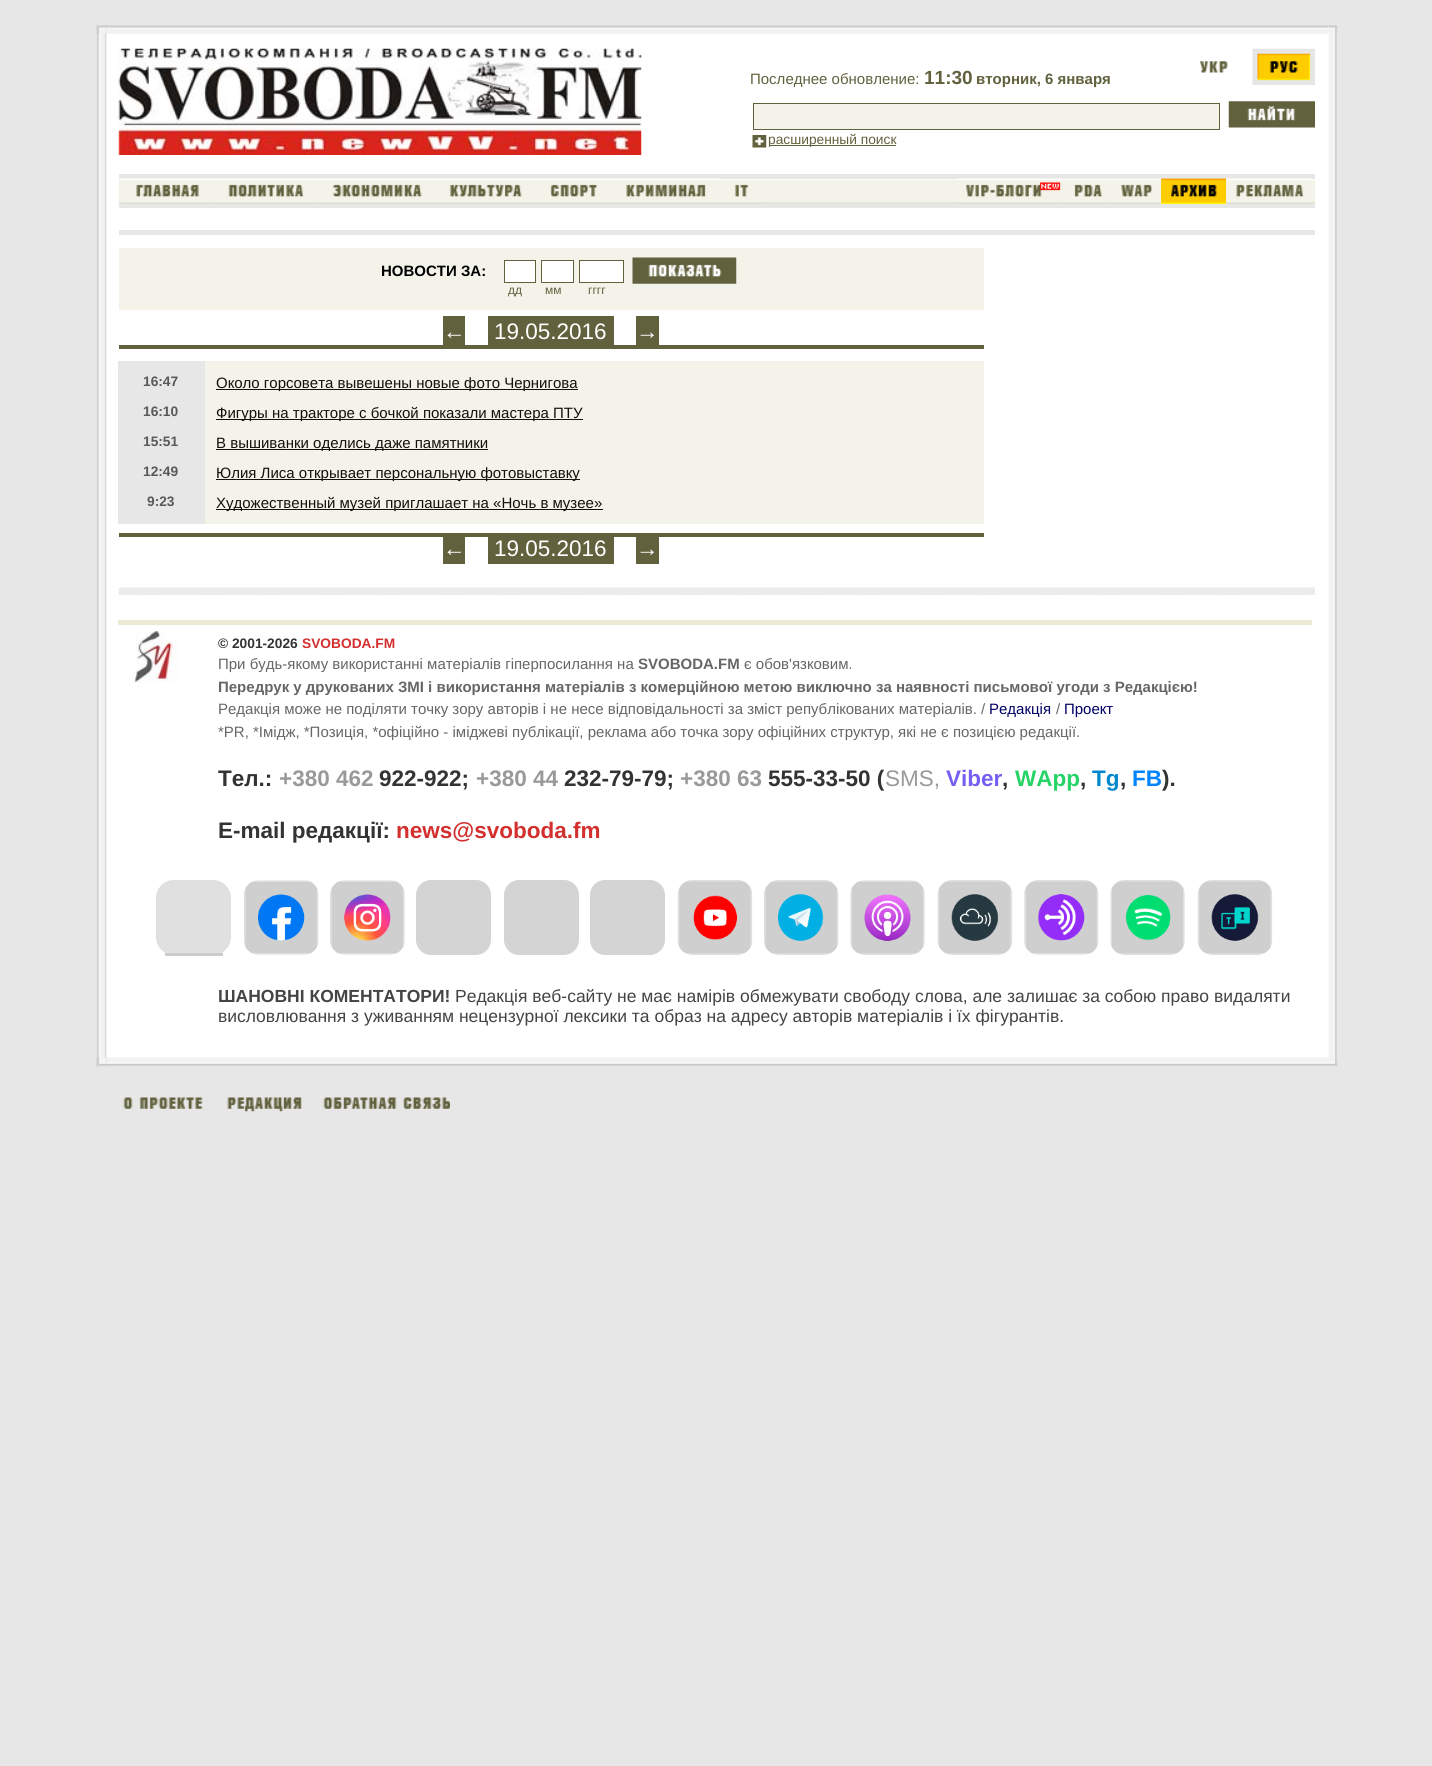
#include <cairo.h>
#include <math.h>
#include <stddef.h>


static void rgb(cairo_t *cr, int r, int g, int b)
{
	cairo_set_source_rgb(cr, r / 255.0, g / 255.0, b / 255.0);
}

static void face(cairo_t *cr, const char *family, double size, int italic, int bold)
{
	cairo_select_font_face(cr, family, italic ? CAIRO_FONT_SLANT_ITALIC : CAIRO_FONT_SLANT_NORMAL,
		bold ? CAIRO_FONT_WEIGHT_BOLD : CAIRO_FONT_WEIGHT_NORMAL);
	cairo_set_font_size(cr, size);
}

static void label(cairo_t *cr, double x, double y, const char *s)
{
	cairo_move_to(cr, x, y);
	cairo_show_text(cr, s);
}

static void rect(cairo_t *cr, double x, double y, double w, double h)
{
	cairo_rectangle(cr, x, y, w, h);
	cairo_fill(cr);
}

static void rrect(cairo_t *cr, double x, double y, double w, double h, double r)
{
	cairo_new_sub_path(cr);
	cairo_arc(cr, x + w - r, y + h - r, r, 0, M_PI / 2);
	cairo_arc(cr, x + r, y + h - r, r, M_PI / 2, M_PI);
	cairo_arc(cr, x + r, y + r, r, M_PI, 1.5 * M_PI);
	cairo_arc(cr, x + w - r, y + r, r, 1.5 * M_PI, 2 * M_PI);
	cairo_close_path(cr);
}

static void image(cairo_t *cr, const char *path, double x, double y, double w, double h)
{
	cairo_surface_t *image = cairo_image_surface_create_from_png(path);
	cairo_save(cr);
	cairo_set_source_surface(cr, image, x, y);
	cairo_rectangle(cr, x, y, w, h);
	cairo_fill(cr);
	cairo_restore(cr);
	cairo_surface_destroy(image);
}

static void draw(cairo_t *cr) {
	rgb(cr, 231, 231, 231);
	cairo_paint(cr);
	rgb(cr, 255, 255, 255);
	rect(cr, 96, 25, 1242, 1041);
	image(cr, "image0.png", 96, 25, 1242, 9);
	image(cr, "image1.png", 1328, 25, 10, 1042);
	image(cr, "image2.png", 96, 1057, 1242, 10);
	image(cr, "image3.png", 96, 25, 11, 1042);
	image(cr, "image4.png", 96, 25, 10, 9);
	image(cr, "image5.png", 1329, 25, 9, 9);
	image(cr, "image6.png", 1334, 1057, 4, 9);
	image(cr, "image7.png", 96, 1057, 10, 10);
	rgb(cr, 231, 231, 231);
	rect(cr, 119, 230, 1196, 5);
	image(cr, "image8.png", 118, 48, 524, 107);
	face(cr, "Liberation Sans", 15, 0, 0);
	rgb(cr, 97, 97, 62);
	label(cr, 750, 84, "Последнее обновление:");
	face(cr, "Liberation Sans", 19, 0, 1);
	label(cr, 924, 84, "11:30");
	face(cr, "Liberation Sans", 15, 0, 1);
	label(cr, 976, 84, "вторник, 6 января");
	image(cr, "image9.png", 1199, 61, 29, 12);
	image(cr, "image10.png", 1252, 48, 63, 37);
	rgb(cr, 243, 243, 233);
	cairo_rectangle(cr, 753.5, 103.5, 466, 26);
	cairo_fill_preserve(cr);
	rgb(cr, 97, 97, 62);
	cairo_set_line_width(cr, 1);
	cairo_stroke(cr);
	image(cr, "image11.png", 1228, 101, 87, 27);
	image(cr, "image12.png", 752, 135, 15, 13);
	rect(cr, 769, 145, 127, 1);
	face(cr, "Liberation Sans", 13.75, 0, 0);
	label(cr, 768, 144, "расширенный поиск");
	image(cr, "image13.png", 118, 180, 1197, 24);
	rgb(cr, 231, 231, 231);
	rect(cr, 119, 174, 1196, 5);
	rect(cr, 119, 204, 1196, 4);
	image(cr, "image14.png", 121, 178, 93, 26);
	rgb(cr, 242, 242, 242);
	rect(cr, 122, 178, 91, 1);
	image(cr, "image15.png", 214, 178, 105, 26);
	rect(cr, 214, 178, 104, 1);
	rect(cr, 319, 178, 117, 1);
	image(cr, "image16.png", 319, 179, 117, 25);
	image(cr, "image17.png", 436, 178, 100, 26);
	rect(cr, 437, 178, 99, 1);
	image(cr, "image18.png", 536, 178, 75, 26);
	rect(cr, 537, 178, 74, 1);
	image(cr, "image19.png", 611, 178, 109, 26);
	rect(cr, 612, 178, 108, 1);
	image(cr, "image20.png", 720, 184, 41, 20);
	image(cr, "image21.png", 956, 178, 108, 26);
	rect(cr, 957, 178, 106, 1);
	image(cr, "image22.png", 1064, 178, 47, 26);
	image(cr, "image23.png", 1111, 178, 50, 26);
	image(cr, "image24.png", 1161, 178, 66, 26);
	image(cr, "image25.png", 1161, 178, 66, 26);
	image(cr, "image26.png", 1226, 178, 87, 26);
	image(cr, "image27.png", 1226, 178, 86, 26);
	rgb(cr, 243, 243, 233);
	rect(cr, 119, 248, 865, 62);
	face(cr, "Liberation Sans", 15, 0, 1);
	rgb(cr, 0, 0, 0);
	label(cr, 381, 276, "НОВОСТИ ЗА:");
	image(cr, "image28.png", 632, 257, 105, 27);
	rgb(cr, 255, 255, 255);
	cairo_rectangle(cr, 504.5, 260.5, 31, 22);
	cairo_fill_preserve(cr);
	rgb(cr, 97, 97, 62);
	cairo_stroke(cr);
	face(cr, "Liberation Sans", 12, 0, 0);
	label(cr, 508, 294, "дд");
	rgb(cr, 255, 255, 255);
	cairo_rectangle(cr, 541.5, 260.5, 32, 22);
	cairo_fill_preserve(cr);
	rgb(cr, 97, 97, 62);
	cairo_stroke(cr);
	label(cr, 545, 294, "мм");
	rgb(cr, 255, 255, 255);
	cairo_rectangle(cr, 579.5, 260.5, 44, 22);
	cairo_fill_preserve(cr);
	rgb(cr, 97, 97, 62);
	cairo_stroke(cr);
	label(cr, 588, 294, "гггг");
	rect(cr, 119, 345, 865, 4);
	rect(cr, 443, 316, 22, 29);
	face(cr, "Liberation Sans", 22.5, 0, 0);
	rgb(cr, 255, 255, 255);
	label(cr, 443, 339, "←");
	rgb(cr, 97, 97, 62);
	rect(cr, 488, 316, 126, 29);
	rgb(cr, 255, 255, 255);
	label(cr, 494, 339, "19.05.2016");
	rgb(cr, 97, 97, 62);
	rect(cr, 636, 316, 23, 29);
	rgb(cr, 255, 255, 255);
	label(cr, 636, 339, "→");
	rgb(cr, 243, 243, 233);
	rect(cr, 205, 361, 779, 163);
	rgb(cr, 231, 231, 231);
	rect(cr, 118, 361, 87, 163);
	face(cr, "Liberation Sans", 13.75, 0, 1);
	rgb(cr, 88, 89, 90);
	label(cr, 143, 386, "16:47");
	rgb(cr, 18, 18, 11);
	rect(cr, 216, 389, 362, 1);
	face(cr, "Liberation Sans", 15, 0, 0);
	label(cr, 216, 388, "Около горсовета вывешены новые фото Чернигова");
	face(cr, "Liberation Sans", 13.75, 0, 1);
	rgb(cr, 88, 89, 90);
	label(cr, 143, 416, "16:10");
	rgb(cr, 18, 18, 11);
	rect(cr, 216, 419, 367, 1);
	face(cr, "Liberation Sans", 15, 0, 0);
	label(cr, 216, 418, "Фигуры на тракторе с бочкой показали мастера ПТУ");
	face(cr, "Liberation Sans", 13.75, 0, 1);
	rgb(cr, 88, 89, 90);
	label(cr, 143, 446, "15:51");
	rgb(cr, 18, 18, 11);
	rect(cr, 216, 449, 272, 1);
	face(cr, "Liberation Sans", 15, 0, 0);
	label(cr, 216, 448, "В вышиванки оделись даже памятники");
	face(cr, "Liberation Sans", 13.75, 0, 1);
	rgb(cr, 88, 89, 90);
	label(cr, 143, 476, "12:49");
	rgb(cr, 18, 18, 11);
	rect(cr, 216, 479, 364, 1);
	face(cr, "Liberation Sans", 15, 0, 0);
	label(cr, 216, 478, "Юлия Лиса открывает персональную фотовыставку");
	face(cr, "Liberation Sans", 13.75, 0, 1);
	rgb(cr, 88, 89, 90);
	label(cr, 147, 506, "9:23");
	rgb(cr, 18, 18, 11);
	rect(cr, 216, 509, 387, 1);
	face(cr, "Liberation Sans", 15, 0, 0);
	label(cr, 216, 508, "Художественный музей приглашает на «Ночь в музее»");
	rgb(cr, 97, 97, 62);
	rect(cr, 119, 533, 865, 4);
	rect(cr, 443, 537, 22, 27);
	face(cr, "Liberation Sans", 22.5, 0, 0);
	rgb(cr, 255, 255, 255);
	label(cr, 443, 556, "←");
	rgb(cr, 97, 97, 62);
	rect(cr, 488, 537, 126, 27);
	rgb(cr, 255, 255, 255);
	label(cr, 494, 556, "19.05.2016");
	rgb(cr, 97, 97, 62);
	rect(cr, 636, 537, 23, 27);
	rgb(cr, 255, 255, 255);
	label(cr, 636, 556, "→");
	image(cr, "image29.png", 118, 587, 1197, 8);
	rgb(cr, 235, 235, 212);
	rect(cr, 118, 620, 1194, 5);
	image(cr, "image30.png", 134, 631, 45, 52);
	face(cr, "Liberation Sans", 13.75, 0, 1);
	rgb(cr, 51, 51, 51);
	label(cr, 218, 648, "© 2001-2026");
	rgb(cr, 211, 47, 47);
	label(cr, 302, 648, "SVOBODA.FM");
	face(cr, "Liberation Sans", 15, 0, 0);
	rgb(cr, 102, 102, 102);
	label(cr, 218, 669, "При будь-якому використанні матеріалів гіперпосилання на");
	face(cr, "Liberation Sans", 15, 0, 1);
	label(cr, 638, 669, "SVOBODA.FM");
	face(cr, "Liberation Sans", 15, 0, 0);
	label(cr, 744, 669, "є обов'язковим.");
	face(cr, "Liberation Sans", 15, 0, 1);
	label(cr, 218, 692, "Передрук у друкованих ЗМІ і використання матеріалів з комерційною метою виключно за наявності письмової угоди з Редакцією!");
	face(cr, "Liberation Sans", 15, 0, 0);
	label(cr, 218, 714, "Редакція може не поділяти точку зору авторів і не несе відповідальності за зміст републікованих матеріалів. /");
	rgb(cr, 0, 0, 102);
	label(cr, 989, 714, "Редакція");
	rgb(cr, 102, 102, 102);
	label(cr, 1056, 714, "/");
	rgb(cr, 0, 0, 102);
	label(cr, 1064, 714, "Проект");
	rgb(cr, 102, 102, 102);
	label(cr, 218, 737, "*PR, *Імідж, *Позиція, *офіційно - іміджеві публікації, реклама або точка зору офіційних структур, які не є позицією редакції.");
	face(cr, "Liberation Sans", 22.5, 0, 1);
	rgb(cr, 51, 51, 51);
	label(cr, 218, 786, "Тел.:");
	rgb(cr, 153, 153, 153);
	label(cr, 279, 786, "+380 462");
	rgb(cr, 51, 51, 51);
	label(cr, 379, 786, "922-922;");
	rgb(cr, 153, 153, 153);
	label(cr, 476, 786, "+380 44");
	rgb(cr, 51, 51, 51);
	label(cr, 564, 786, "232-79-79;");
	rgb(cr, 153, 153, 153);
	label(cr, 680, 786, "+380 63");
	rgb(cr, 51, 51, 51);
	label(cr, 768, 786, "555-33-50 (");
	face(cr, "Liberation Sans", 22.5, 0, 0);
	rgb(cr, 153, 153, 153);
	label(cr, 885, 786, "SMS,");
	face(cr, "Liberation Sans", 22.5, 0, 1);
	rgb(cr, 115, 96, 242);
	label(cr, 946, 786, "Viber");
	rgb(cr, 51, 51, 51);
	label(cr, 1002, 786, ",");
	rgb(cr, 37, 211, 102);
	label(cr, 1015, 786, "WApp");
	rgb(cr, 51, 51, 51);
	label(cr, 1080, 786, ",");
	rgb(cr, 0, 136, 204);
	label(cr, 1092, 786, "Tg");
	rgb(cr, 51, 51, 51);
	label(cr, 1120, 786, ",");
	rgb(cr, 0, 132, 255);
	label(cr, 1132, 786, "FB");
	rgb(cr, 51, 51, 51);
	label(cr, 1162, 786, ").");
	label(cr, 218, 838, "E-mail редакції:");
	rgb(cr, 211, 47, 47);
	label(cr, 396, 838, "news@svoboda.fm");
	rgb(cr, 224, 224, 224);
	rrect(cr, 156, 880, 75, 75, 18);
	cairo_fill(cr);
	rgb(cr, 204, 204, 204);
	rect(cr, 165, 953, 58, 3);
	image(cr, "image31.png", 244, 880, 75, 75);
	image(cr, "image32.png", 330, 880, 75, 75);
	rgb(cr, 212, 212, 212);
	rrect(cr, 416, 880, 75, 75, 15);
	cairo_fill(cr);
	rrect(cr, 504, 880, 75, 75, 15);
	cairo_fill(cr);
	rrect(cr, 590, 880, 75, 75, 15);
	cairo_fill(cr);
	image(cr, "image33.png", 677, 880, 76, 75);
	image(cr, "image34.png", 764, 880, 75, 75);
	image(cr, "image35.png", 850, 880, 75, 75);
	image(cr, "image36.png", 937, 880, 76, 75);
	image(cr, "image37.png", 1024, 880, 75, 75);
	image(cr, "image38.png", 1110, 880, 75, 75);
	image(cr, "image39.png", 1197, 880, 76, 75);
	face(cr, "Liberation Sans", 17.5, 0, 1);
	rgb(cr, 68, 68, 68);
	label(cr, 218, 1002, "ШАНОВНІ КОМЕНТАТОРИ!");
	face(cr, "Liberation Sans", 17.5, 0, 0);
	label(cr, 455, 1002, "Редакція веб-сайту не має намірів обмежувати свободу слова, але залишає за собою право видаляти");
	label(cr, 218, 1022, "висловлювання з уживанням нецензурної лексики та образ на адресу авторів матеріалів і їх фігурантів.");
	image(cr, "image40.png", 123, 1097, 80, 12);
	image(cr, "image41.png", 227, 1097, 75, 15);
	image(cr, "image42.png", 323, 1097, 127, 12);
}

int main(void) {
	cairo_surface_t *surface = cairo_image_surface_create(CAIRO_FORMAT_RGB24, 1432, 1766);
	cairo_t *cr = cairo_create(surface);
	cairo_font_options_t *options = cairo_font_options_create();
	cairo_font_options_set_hint_metrics(options, CAIRO_HINT_METRICS_OFF);
	cairo_font_options_set_hint_style(options, CAIRO_HINT_STYLE_NONE);
	cairo_set_font_options(cr, options);
	cairo_set_miter_limit(cr, 4);
	draw(cr);
	cairo_surface_write_to_png(surface, "render.png");
	cairo_font_options_destroy(options);
	cairo_destroy(cr);
	cairo_surface_destroy(surface);
	return 0;
}
